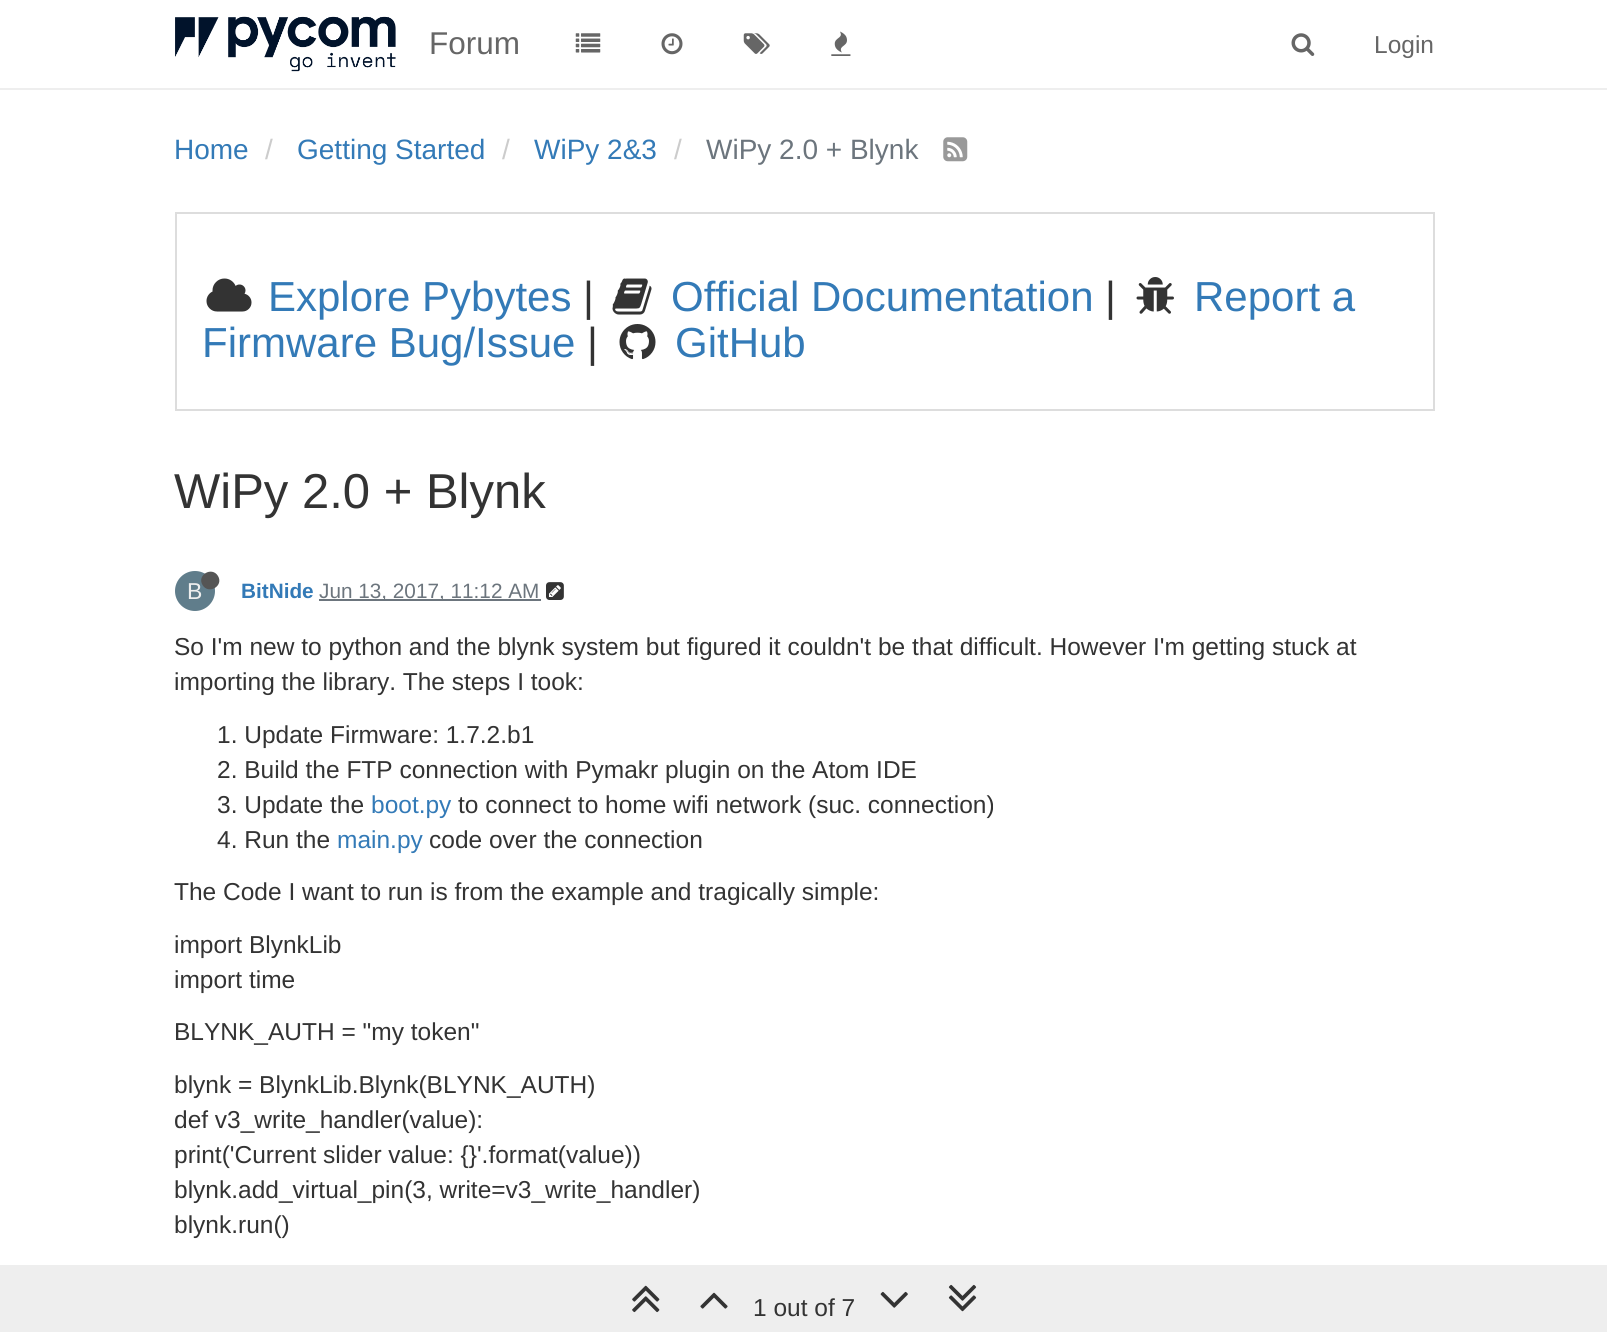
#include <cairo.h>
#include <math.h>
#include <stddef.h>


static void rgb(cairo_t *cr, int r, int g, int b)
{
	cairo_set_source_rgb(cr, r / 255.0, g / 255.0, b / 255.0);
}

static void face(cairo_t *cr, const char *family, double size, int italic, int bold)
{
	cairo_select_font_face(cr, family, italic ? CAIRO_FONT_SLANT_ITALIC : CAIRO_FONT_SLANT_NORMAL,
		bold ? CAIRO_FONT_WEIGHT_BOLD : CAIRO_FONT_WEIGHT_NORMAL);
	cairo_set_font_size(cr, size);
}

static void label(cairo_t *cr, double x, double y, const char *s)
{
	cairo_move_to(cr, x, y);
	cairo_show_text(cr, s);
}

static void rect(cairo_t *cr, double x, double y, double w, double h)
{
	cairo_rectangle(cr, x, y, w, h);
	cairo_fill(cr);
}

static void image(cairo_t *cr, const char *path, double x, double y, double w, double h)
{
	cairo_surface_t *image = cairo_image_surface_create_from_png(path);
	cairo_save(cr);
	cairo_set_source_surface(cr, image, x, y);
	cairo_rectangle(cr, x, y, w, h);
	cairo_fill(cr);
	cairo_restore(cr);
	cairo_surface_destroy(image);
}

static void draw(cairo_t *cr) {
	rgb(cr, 255, 255, 255);
	cairo_paint(cr);
	rgb(cr, 238, 238, 238);
	rect(cr, 0, 88, 1607, 2);
	image(cr, "image0.png", 175, 16, 221, 56);
	face(cr, "Liberation Sans", 31.5, 0, 0);
	rgb(cr, 102, 102, 102);
	label(cr, 429, 54, "Forum");
	image(cr, "image1.png", 575, 33, 26, 20);
	image(cr, "image2.png", 661, 33, 22, 22);
	image(cr, "image3.png", 743, 33, 27, 21);
	image(cr, "image4.png", 831, 31, 20, 25);
	image(cr, "image5.png", 1291, 33, 24, 23);
	face(cr, "Liberation Sans", 24.5, 0, 0);
	label(cr, 1374, 53, "Login");
	face(cr, "Liberation Sans", 28, 0, 0);
	rgb(cr, 51, 122, 183);
	label(cr, 174, 159, "Home");
	rgb(cr, 204, 204, 204);
	label(cr, 265, 159, "/");
	rgb(cr, 51, 122, 183);
	label(cr, 297, 159, "Getting Started");
	rgb(cr, 204, 204, 204);
	label(cr, 502, 159, "/");
	rgb(cr, 51, 122, 183);
	label(cr, 534, 159, "WiPy 2&3");
	rgb(cr, 204, 204, 204);
	label(cr, 674, 159, "/");
	rgb(cr, 108, 117, 125);
	label(cr, 706, 159, "WiPy 2.0 + Blynk");
	image(cr, "image6.png", 943, 137, 25, 25);
	cairo_rectangle(cr, 176, 213, 1258, 197);
	rgb(cr, 221, 221, 221);
	cairo_stroke(cr);
	image(cr, "image7.png", 206, 278, 46, 34);
	face(cr, "Liberation Sans", 42, 0, 0);
	rgb(cr, 51, 122, 183);
	label(cr, 268, 311, "Explore Pybytes");
	rgb(cr, 51, 51, 51);
	label(cr, 583, 311, "|");
	image(cr, "image8.png", 612, 278, 40, 37);
	rgb(cr, 51, 122, 183);
	label(cr, 671, 311, "Official Documentation");
	rgb(cr, 51, 51, 51);
	label(cr, 1105, 311, "|");
	image(cr, "image9.png", 1136, 277, 38, 37);
	rgb(cr, 51, 122, 183);
	label(cr, 1194, 311, "Report a");
	label(cr, 202, 357, "Firmware Bug/Issue");
	rgb(cr, 51, 51, 51);
	label(cr, 587, 357, "|");
	image(cr, "image10.png", 619, 324, 37, 36);
	rgb(cr, 51, 122, 183);
	label(cr, 675, 357, "GitHub");
	face(cr, "Liberation Sans", 49, 0, 0);
	rgb(cr, 51, 51, 51);
	label(cr, 174, 508, "WiPy 2.0 + Blynk");
	rgb(cr, 96, 125, 139);
	cairo_new_path(cr);
	cairo_arc(cr, 195, 591, 20, 0, 2 * M_PI);
	cairo_fill(cr);
	face(cr, "Liberation Sans", 23, 0, 0);
	rgb(cr, 238, 238, 238);
	label(cr, 187, 599, "B");
	rgb(cr, 85, 85, 85);
	cairo_new_path(cr);
	cairo_move_to(cr, 218, 576);
	cairo_curve_to(cr, 224, 586, 208.5, 595, 202.5, 585);
	cairo_curve_to(cr, 196.5, 575, 212, 566, 218, 576);
	cairo_close_path(cr);
	cairo_fill(cr);
	face(cr, "Liberation Sans", 20.75, 0, 1);
	rgb(cr, 51, 122, 183);
	label(cr, 241, 598, "BitNide");
	rgb(cr, 108, 117, 125);
	rect(cr, 319, 599, 222, 2);
	face(cr, "Liberation Sans", 20.75, 0, 0);
	label(cr, 319, 598, "Jun 13, 2017, 11:12 AM");
	image(cr, "image11.png", 546, 582, 18, 18);
	face(cr, "Liberation Sans", 24.5, 0, 0);
	rgb(cr, 51, 51, 51);
	label(cr, 174, 655, "So I'm new to python and the blynk system but figured it couldn't be that difficult. However I'm getting stuck at");
	label(cr, 174, 690, "importing the library. The steps I took:");
	label(cr, 217, 743, "1. Update Firmware: 1.7.2.b1");
	label(cr, 217, 778, "2. Build the FTP connection with Pymakr plugin on the Atom IDE");
	label(cr, 217, 813, "3. Update the");
	rgb(cr, 51, 122, 183);
	label(cr, 371, 813, "boot.py");
	rgb(cr, 51, 51, 51);
	label(cr, 458, 813, "to connect to home wifi network (suc. connection)");
	label(cr, 217, 848, "4. Run the");
	rgb(cr, 51, 122, 183);
	label(cr, 337, 848, "main.py");
	rgb(cr, 51, 51, 51);
	label(cr, 429, 848, "code over the connection");
	label(cr, 174, 900, "The Code I want to run is from the example and tragically simple:");
	label(cr, 174, 953, "import BlynkLib");
	label(cr, 174, 988, "import time");
	label(cr, 174, 1040, "BLYNK_AUTH = \"my token\"");
	label(cr, 174, 1093, "blynk = BlynkLib.Blynk(BLYNK_AUTH)");
	label(cr, 174, 1128, "def v3_write_handler(value):");
	label(cr, 174, 1163, "print('Current slider value: {}'.format(value))");
	label(cr, 174, 1198, "blynk.add_virtual_pin(3, write=v3_write_handler)");
	label(cr, 174, 1233, "blynk.run()");
	rgb(cr, 238, 238, 238);
	rect(cr, 0, 1265, 1607, 67);
	image(cr, "image12.png", 632, 1285, 28, 28);
	image(cr, "image13.png", 700, 1292, 28, 17);
	rgb(cr, 51, 51, 51);
	label(cr, 753, 1316, "1 out of 7");
	image(cr, "image14.png", 880, 1291, 28, 17);
	image(cr, "image15.png", 948, 1284, 29, 28);
}

int main(void) {
	cairo_surface_t *surface = cairo_image_surface_create(CAIRO_FORMAT_RGB24, 1607, 1332);
	cairo_t *cr = cairo_create(surface);
	cairo_font_options_t *options = cairo_font_options_create();
	cairo_font_options_set_hint_metrics(options, CAIRO_HINT_METRICS_OFF);
	cairo_font_options_set_hint_style(options, CAIRO_HINT_STYLE_NONE);
	cairo_set_font_options(cr, options);
	cairo_set_miter_limit(cr, 4);
	draw(cr);
	cairo_surface_write_to_png(surface, "render.png");
	cairo_font_options_destroy(options);
	cairo_destroy(cr);
	cairo_surface_destroy(surface);
	return 0;
}
